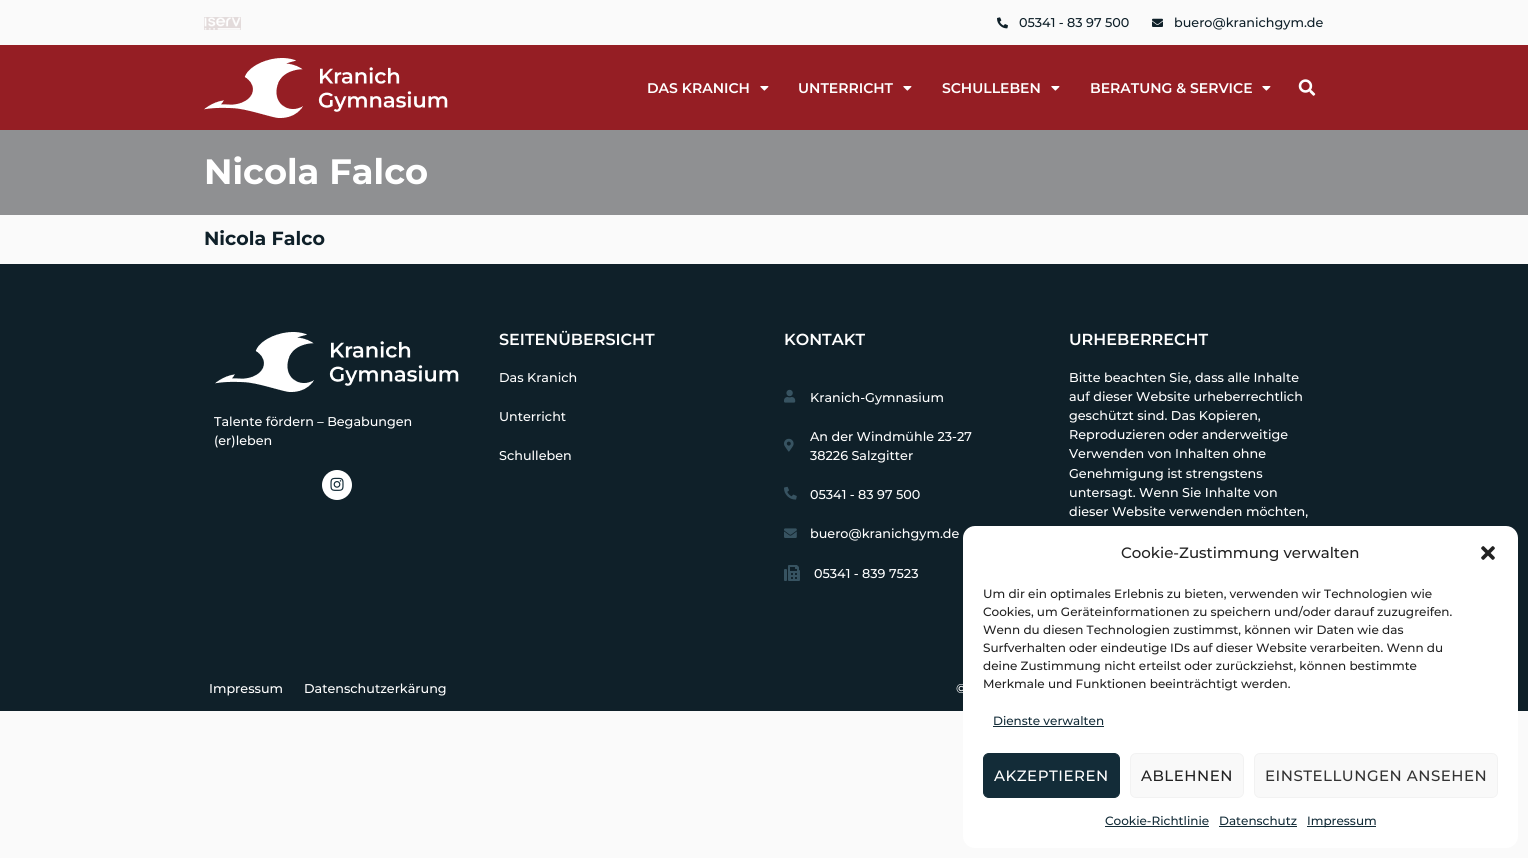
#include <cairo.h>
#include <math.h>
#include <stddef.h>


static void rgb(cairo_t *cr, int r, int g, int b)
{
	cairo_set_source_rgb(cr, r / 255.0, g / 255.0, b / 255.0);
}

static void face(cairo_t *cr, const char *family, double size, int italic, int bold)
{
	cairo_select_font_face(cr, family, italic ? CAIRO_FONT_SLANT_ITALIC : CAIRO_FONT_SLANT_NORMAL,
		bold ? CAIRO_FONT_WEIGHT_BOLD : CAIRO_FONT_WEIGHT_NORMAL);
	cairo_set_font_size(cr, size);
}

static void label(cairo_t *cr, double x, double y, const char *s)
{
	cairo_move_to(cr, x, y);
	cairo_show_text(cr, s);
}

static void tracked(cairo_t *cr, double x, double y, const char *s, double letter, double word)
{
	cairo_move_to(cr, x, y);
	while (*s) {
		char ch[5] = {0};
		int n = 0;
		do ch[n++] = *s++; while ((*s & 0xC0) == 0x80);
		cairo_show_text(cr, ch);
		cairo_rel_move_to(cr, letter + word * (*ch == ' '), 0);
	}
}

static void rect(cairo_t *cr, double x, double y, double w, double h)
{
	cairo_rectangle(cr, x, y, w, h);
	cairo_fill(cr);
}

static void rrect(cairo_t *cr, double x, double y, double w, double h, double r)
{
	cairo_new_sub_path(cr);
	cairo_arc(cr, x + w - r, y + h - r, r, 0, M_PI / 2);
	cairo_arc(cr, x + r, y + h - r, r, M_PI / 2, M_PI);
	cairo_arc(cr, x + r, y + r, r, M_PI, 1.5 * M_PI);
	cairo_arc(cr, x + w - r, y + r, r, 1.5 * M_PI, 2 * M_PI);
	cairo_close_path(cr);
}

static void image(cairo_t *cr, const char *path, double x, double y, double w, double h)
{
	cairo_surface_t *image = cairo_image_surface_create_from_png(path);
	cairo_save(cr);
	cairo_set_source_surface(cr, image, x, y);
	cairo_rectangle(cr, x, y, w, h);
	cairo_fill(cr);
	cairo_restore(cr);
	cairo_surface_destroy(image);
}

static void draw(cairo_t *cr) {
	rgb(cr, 250, 250, 250);
	cairo_paint(cr);
	image(cr, "image0.png", 204, 17, 37, 13);
	image(cr, "image1.png", 997, 17, 11, 12);
	face(cr, "Montserrat Medium", 12.75, 0, 0);
	rgb(cr, 15, 32, 41);
	label(cr, 1019, 27, "05341 - 83 97 500");
	image(cr, "image2.png", 1152, 18, 11, 9);
	label(cr, 1174, 27, "buero@kranichgym.de");
	rgb(cr, 149, 30, 36);
	rect(cr, 0, 45, 1528, 85);
	image(cr, "image3.png", 204, 58, 244, 60);
	face(cr, "Montserrat SemiBold", 14, 0, 0);
	rgb(cr, 255, 255, 255);
	label(cr, 647, 93, "DAS KRANICH");
	image(cr, "image4.png", 760, 86, 9, 5);
	label(cr, 798, 93, "UNTERRICHT");
	image(cr, "image4.png", 903, 86, 9, 5);
	label(cr, 942, 93, "SCHULLEBEN");
	image(cr, "image4.png", 1051, 86, 9, 5);
	label(cr, 1090, 93, "BERATUNG & SERVICE");
	image(cr, "image4.png", 1262, 86, 9, 5);
	image(cr, "image5.png", 1298, 79, 18, 17);
	rgb(cr, 143, 144, 146);
	rect(cr, 0, 130, 1528, 85);
	face(cr, "Montserrat", 35.25, 0, 1);
	rgb(cr, 255, 255, 255);
	label(cr, 204, 184, "Nicola Falco");
	face(cr, "Montserrat", 19, 0, 1);
	rgb(cr, 15, 32, 41);
	label(cr, 204, 245, "Nicola Falco");
	rect(cr, 0, 264, 1528, 447);
	image(cr, "image6.png", 215, 332, 244, 60);
	face(cr, "Montserrat Medium", 12.75, 0, 0);
	rgb(cr, 255, 255, 255);
	label(cr, 214, 426, "Talente fördern – Begabungen");
	label(cr, 214, 445, "(er)leben");
	cairo_new_path(cr);
	cairo_arc(cr, 337, 485, 15, 0, 2 * M_PI);
	cairo_fill(cr);
	image(cr, "image7.png", 330, 477, 14, 14);
	face(cr, "Montserrat SemiBold", 16, 0, 0);
	label(cr, 499, 345, "SEITENÜBERSICHT");
	face(cr, "Montserrat Medium", 12.75, 0, 0);
	label(cr, 499, 382, "Das Kranich");
	label(cr, 499, 421, "Unterricht");
	label(cr, 499, 460, "Schulleben");
	face(cr, "Montserrat SemiBold", 16, 0, 0);
	label(cr, 784, 345, "KONTAKT");
	image(cr, "image8.png", 784, 389, 12, 14);
	face(cr, "Montserrat Medium", 12.75, 0, 0);
	label(cr, 810, 402, "Kranich-Gymnasium");
	image(cr, "image9.png", 784, 438, 10, 14);
	label(cr, 810, 441, "An der Windmühle 23-27");
	label(cr, 810, 460, "38226 Salzgitter");
	image(cr, "image10.png", 784, 486, 13, 14);
	label(cr, 810, 499, "05341 - 83 97 500");
	image(cr, "image11.png", 784, 528, 13, 10);
	label(cr, 810, 538, "buero@kranichgym.de");
	image(cr, "image12.png", 784, 565, 16, 16);
	label(cr, 814, 578, "05341 - 839 7523");
	face(cr, "Montserrat SemiBold", 16, 0, 0);
	label(cr, 1069, 345, "URHEBERRECHT");
	face(cr, "Montserrat Medium", 12.75, 0, 0);
	label(cr, 1069, 382, "Bitte beachten Sie, dass alle Inhalte");
	label(cr, 1069, 401, "auf dieser Website urheberrechtlich");
	label(cr, 1069, 420, "geschützt sind. Das Kopieren,");
	label(cr, 1069, 439, "Reproduzieren oder anderweitige");
	label(cr, 1069, 458, "Verwenden von Inhalten ohne");
	label(cr, 1069, 478, "Genehmigung ist strengstens");
	label(cr, 1069, 497, "untersagt. Wenn Sie Inhalte von");
	label(cr, 1069, 516, "dieser Website verwenden möchten,");
	label(cr, 209, 693, "Impressum");
	label(cr, 304, 693, "Datenschutzerkärung");
	label(cr, 956, 693, "©");
	rrect(cr, 963, 526, 555, 322, 12);
	cairo_fill(cr);
	face(cr, "Montserrat Medium", 15, 0, 0);
	rgb(cr, 34, 34, 34);
	label(cr, 1121, 558, "Cookie-Zustimmung verwalten");
	image(cr, "image13.png", 1481, 546, 14, 14);
	face(cr, "Montserrat Medium", 12, 0, 0);
	label(cr, 983, 598, "Um dir ein optimales Erlebnis zu bieten, verwenden wir Technologien wie");
	label(cr, 983, 616, "Cookies, um Geräteinformationen zu speichern und/oder darauf zuzugreifen.");
	label(cr, 983, 634, "Wenn du diesen Technologien zustimmst, können wir Daten wie das");
	label(cr, 983, 652, "Surfverhalten oder eindeutige IDs auf dieser Website verarbeiten. Wenn du");
	label(cr, 983, 670, "deine Zustimmung nicht erteilst oder zurückziehst, können bestimmte");
	label(cr, 983, 688, "Merkmale und Funktionen beeinträchtigt werden.");
	rgb(cr, 19, 44, 56);
	label(cr, 993, 725, "Dienste verwalten");
	rect(cr, 993, 726, 111, 1);
	rrect(cr, 983.5, 753.5, 136, 44, 5.5);
	cairo_fill_preserve(cr);
	cairo_set_line_width(cr, 1);
	cairo_stroke(cr);
	face(cr, "Montserrat Medium", 15, 0, 0);
	rgb(cr, 255, 255, 255);
	tracked(cr, 994, 781, "AKZEPTIEREN", 0.5, 0);
	rgb(cr, 249, 249, 249);
	rrect(cr, 1130.5, 753.5, 113, 44, 5.5);
	cairo_fill_preserve(cr);
	rgb(cr, 242, 242, 242);
	cairo_stroke(cr);
	rgb(cr, 34, 34, 34);
	tracked(cr, 1141, 781, "ABLEHNEN", 0.5, 0);
	rgb(cr, 249, 249, 249);
	rrect(cr, 1254.5, 753.5, 243, 44, 5.5);
	cairo_fill_preserve(cr);
	rgb(cr, 242, 242, 242);
	cairo_stroke(cr);
	rgb(cr, 51, 51, 51);
	tracked(cr, 1265, 781, "EINSTELLUNGEN ANSEHEN", 0.5, 0);
	face(cr, "Montserrat Medium", 12, 0, 0);
	rgb(cr, 19, 44, 56);
	label(cr, 1105, 825, "Cookie-Richtlinie");
	rect(cr, 1105, 826, 104, 1);
	label(cr, 1219, 825, "Datenschutz");
	rect(cr, 1219, 826, 78, 1);
	rect(cr, 1307, 826, 69, 1);
	label(cr, 1307, 825, "Impressum");
}

int main(void) {
	cairo_surface_t *surface = cairo_image_surface_create(CAIRO_FORMAT_RGB24, 1528, 858);
	cairo_t *cr = cairo_create(surface);
	cairo_font_options_t *options = cairo_font_options_create();
	cairo_font_options_set_hint_metrics(options, CAIRO_HINT_METRICS_OFF);
	cairo_font_options_set_hint_style(options, CAIRO_HINT_STYLE_NONE);
	cairo_set_font_options(cr, options);
	cairo_set_miter_limit(cr, 4);
	draw(cr);
	cairo_surface_write_to_png(surface, "render.png");
	cairo_font_options_destroy(options);
	cairo_destroy(cr);
	cairo_surface_destroy(surface);
	return 0;
}
